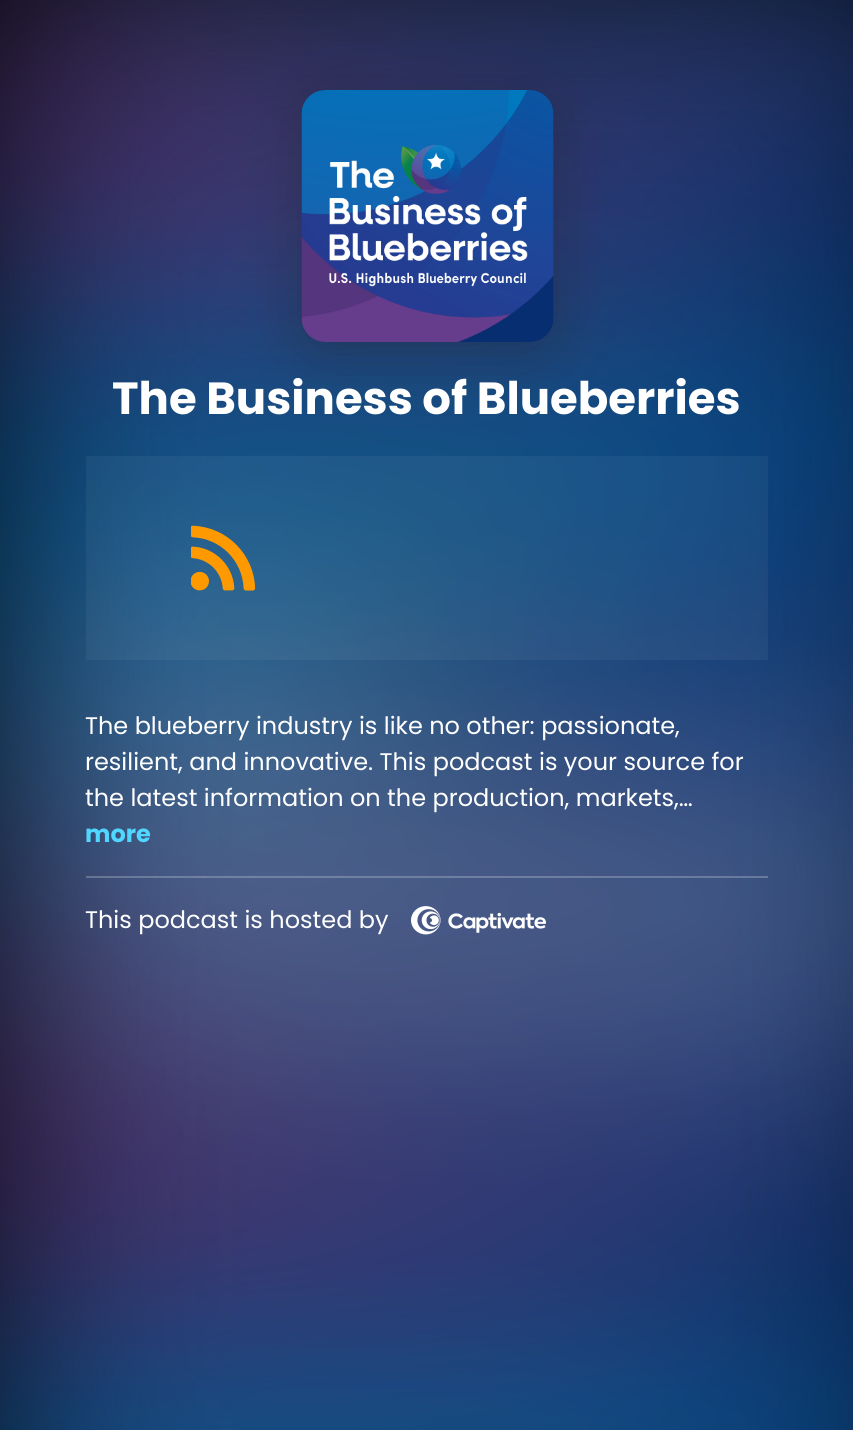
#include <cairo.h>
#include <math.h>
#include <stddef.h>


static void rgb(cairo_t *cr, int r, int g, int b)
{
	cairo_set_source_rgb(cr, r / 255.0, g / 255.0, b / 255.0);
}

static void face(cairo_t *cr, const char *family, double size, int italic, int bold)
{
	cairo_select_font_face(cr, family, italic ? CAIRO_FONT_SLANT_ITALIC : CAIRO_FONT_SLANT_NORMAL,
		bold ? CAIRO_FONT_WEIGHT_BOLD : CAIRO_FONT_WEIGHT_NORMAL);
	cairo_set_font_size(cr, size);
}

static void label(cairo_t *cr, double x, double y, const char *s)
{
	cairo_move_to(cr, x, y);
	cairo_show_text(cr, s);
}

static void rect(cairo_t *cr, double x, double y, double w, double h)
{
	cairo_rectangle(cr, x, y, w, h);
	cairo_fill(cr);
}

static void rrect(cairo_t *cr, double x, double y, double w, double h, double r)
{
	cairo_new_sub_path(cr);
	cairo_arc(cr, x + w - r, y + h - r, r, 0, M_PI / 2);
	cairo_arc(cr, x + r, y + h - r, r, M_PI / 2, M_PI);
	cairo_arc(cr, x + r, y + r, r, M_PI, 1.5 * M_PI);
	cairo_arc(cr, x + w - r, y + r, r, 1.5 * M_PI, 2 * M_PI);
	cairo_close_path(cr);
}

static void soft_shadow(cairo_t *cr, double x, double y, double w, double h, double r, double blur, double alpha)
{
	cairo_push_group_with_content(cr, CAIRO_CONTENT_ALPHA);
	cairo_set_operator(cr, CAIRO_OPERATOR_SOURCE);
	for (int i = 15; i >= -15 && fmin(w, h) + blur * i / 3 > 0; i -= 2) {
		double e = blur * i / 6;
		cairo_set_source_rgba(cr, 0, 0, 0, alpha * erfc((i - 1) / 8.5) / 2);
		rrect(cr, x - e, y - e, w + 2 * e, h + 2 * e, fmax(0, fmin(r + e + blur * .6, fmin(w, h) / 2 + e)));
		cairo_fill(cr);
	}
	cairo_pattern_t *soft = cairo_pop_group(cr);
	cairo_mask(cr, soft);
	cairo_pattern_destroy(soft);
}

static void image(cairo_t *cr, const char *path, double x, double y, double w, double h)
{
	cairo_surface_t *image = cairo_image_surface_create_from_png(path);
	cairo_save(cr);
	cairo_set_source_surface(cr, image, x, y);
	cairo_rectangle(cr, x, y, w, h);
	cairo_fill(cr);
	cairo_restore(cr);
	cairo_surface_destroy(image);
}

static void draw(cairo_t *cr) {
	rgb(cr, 0, 0, 0);
	cairo_paint(cr);
	image(cr, "image0.png", 0, 0, 853, 1430);
	rgb(cr, 31, 33, 36);
	soft_shadow(cr, 302, 99, 252, 252, 24, 30, 0.38);
	image(cr, "image1.png", 301, 90, 253, 252);
	face(cr, "Poppins", 45, 0, 1);
	rgb(cr, 255, 255, 255);
	label(cr, 112, 414, "The Business of Blueberries");
	cairo_set_source_rgba(cr, 1, 1, 1, 0.05);
	rect(cr, 86, 456, 682, 204);
	image(cr, "image2.png", 191, 525, 64, 66);
	face(cr, "Poppins", 24, 0, 0);
	rgb(cr, 255, 255, 255);
	label(cr, 85, 734, "The blueberry industry is like no other: passionate,");
	label(cr, 85, 770, "resilient, and innovative. This podcast is your source for");
	label(cr, 85, 806, "the latest information on the production, markets,…");
	face(cr, "Poppins", 24, 0, 1);
	rgb(cr, 81, 214, 255);
	label(cr, 85, 842, "more");
	cairo_set_source_rgba(cr, 0.937, 0.953, 0.98, 0.25);
	rect(cr, 86, 876, 682, 2);
	face(cr, "Poppins", 24, 0, 0);
	rgb(cr, 255, 255, 255);
	label(cr, 85, 928, "This podcast is hosted by");
	image(cr, "image3.png", 411, 906, 135, 29);
}

int main(void) {
	cairo_surface_t *surface = cairo_image_surface_create(CAIRO_FORMAT_RGB24, 853, 1430);
	cairo_t *cr = cairo_create(surface);
	cairo_font_options_t *options = cairo_font_options_create();
	cairo_font_options_set_hint_metrics(options, CAIRO_HINT_METRICS_OFF);
	cairo_font_options_set_hint_style(options, CAIRO_HINT_STYLE_NONE);
	cairo_set_font_options(cr, options);
	cairo_set_miter_limit(cr, 4);
	draw(cr);
	cairo_surface_write_to_png(surface, "render.png");
	cairo_font_options_destroy(options);
	cairo_destroy(cr);
	cairo_surface_destroy(surface);
	return 0;
}
